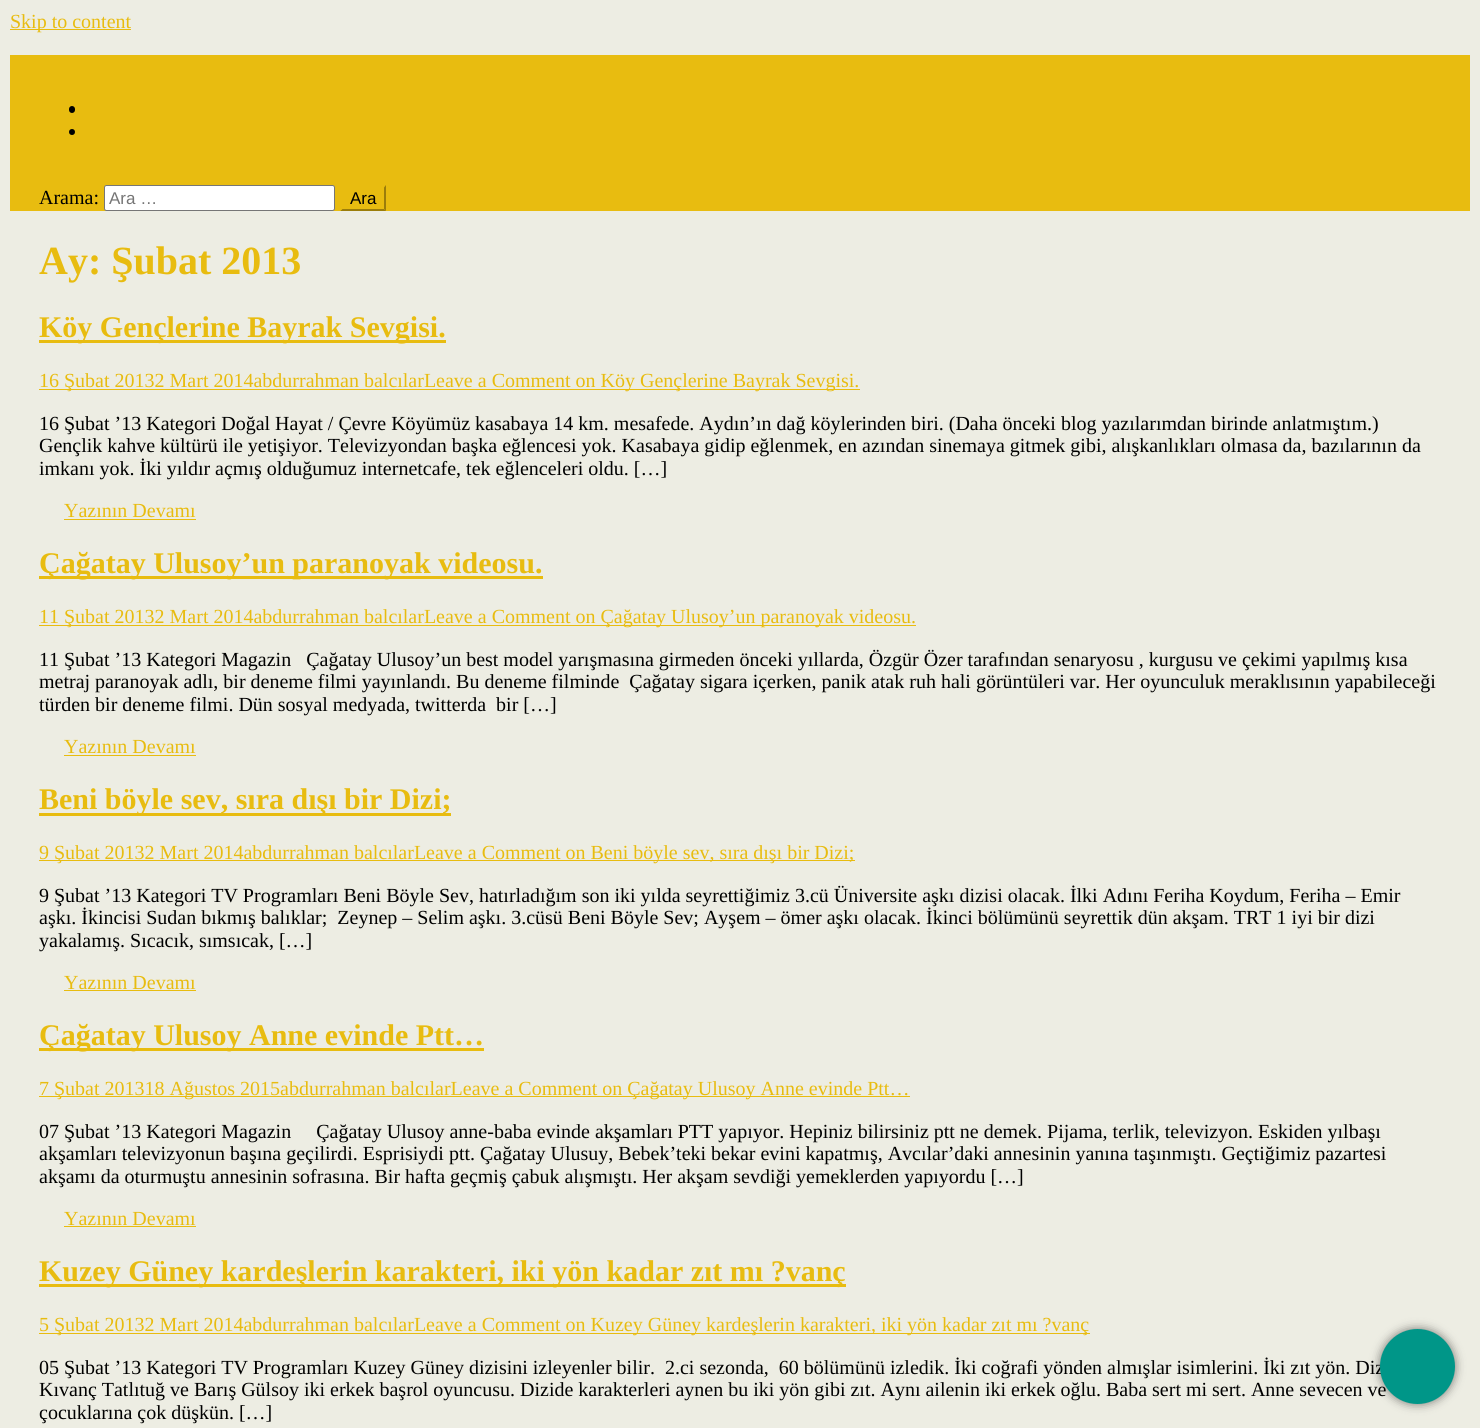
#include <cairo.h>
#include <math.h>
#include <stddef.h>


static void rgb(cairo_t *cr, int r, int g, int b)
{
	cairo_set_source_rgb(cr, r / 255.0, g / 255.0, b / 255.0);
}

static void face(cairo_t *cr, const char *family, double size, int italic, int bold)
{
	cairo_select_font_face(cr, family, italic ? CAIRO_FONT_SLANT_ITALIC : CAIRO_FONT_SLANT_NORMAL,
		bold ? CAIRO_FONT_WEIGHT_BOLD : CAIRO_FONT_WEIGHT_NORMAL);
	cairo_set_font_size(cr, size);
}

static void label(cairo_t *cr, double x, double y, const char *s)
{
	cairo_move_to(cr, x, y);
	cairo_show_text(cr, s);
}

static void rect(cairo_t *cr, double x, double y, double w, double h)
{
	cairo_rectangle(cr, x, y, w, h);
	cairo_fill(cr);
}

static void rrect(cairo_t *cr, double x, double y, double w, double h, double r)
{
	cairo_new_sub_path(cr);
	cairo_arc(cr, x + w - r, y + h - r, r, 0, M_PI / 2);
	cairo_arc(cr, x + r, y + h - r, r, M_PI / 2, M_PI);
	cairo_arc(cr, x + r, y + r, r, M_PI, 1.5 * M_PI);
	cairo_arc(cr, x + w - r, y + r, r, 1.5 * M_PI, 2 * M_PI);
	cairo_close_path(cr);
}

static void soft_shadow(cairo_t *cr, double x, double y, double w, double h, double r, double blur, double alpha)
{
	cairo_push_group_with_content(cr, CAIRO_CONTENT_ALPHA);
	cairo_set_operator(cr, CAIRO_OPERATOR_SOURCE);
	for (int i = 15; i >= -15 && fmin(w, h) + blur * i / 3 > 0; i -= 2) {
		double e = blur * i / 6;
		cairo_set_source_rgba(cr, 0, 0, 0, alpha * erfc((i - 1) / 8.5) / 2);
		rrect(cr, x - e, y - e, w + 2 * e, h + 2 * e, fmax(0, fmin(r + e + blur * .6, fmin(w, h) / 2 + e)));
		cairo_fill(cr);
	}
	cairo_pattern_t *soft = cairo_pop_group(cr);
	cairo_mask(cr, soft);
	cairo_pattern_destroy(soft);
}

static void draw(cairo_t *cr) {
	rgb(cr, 237, 237, 227);
	cairo_paint(cr);
	rgb(cr, 232, 188, 16);
	rect(cr, 10, 29, 121, 1);
	face(cr, "Liberation Serif", 20, 0, 0);
	label(cr, 10, 28, "Skip to content");
	rect(cr, 10, 55, 1460, 156);
	rgb(cr, 0, 0, 0);
	rrect(cr, 69, 106, 6, 7, 3);
	cairo_fill(cr);
	cairo_arc(cr, 72, 132, 3, 0, 2 * M_PI);
	cairo_fill(cr);
	label(cr, 39, 204, "Arama:");
	rgb(cr, 255, 255, 255);
	rrect(cr, 104.5, 185.5, 230, 25, 2);
	cairo_fill_preserve(cr);
	rgb(cr, 118, 118, 118);
	cairo_set_line_width(cr, 1);
	cairo_stroke(cr);
	face(cr, "Liberation Sans", 17, 0, 0);
	rgb(cr, 117, 117, 117);
	label(cr, 109, 204, "Ara …");
	rgb(cr, 155, 125, 11);
	cairo_new_path(cr);
	cairo_move_to(cr, 386, 185);
	cairo_line_to(cr, 386, 211);
	cairo_line_to(cr, 384, 209);
	cairo_line_to(cr, 384, 187.5);
	cairo_close_path(cr);
	cairo_fill(cr);
	cairo_new_path(cr);
	cairo_move_to(cr, 386, 211);
	cairo_line_to(cr, 340, 211);
	cairo_line_to(cr, 342, 209);
	cairo_line_to(cr, 384, 209);
	cairo_close_path(cr);
	cairo_fill(cr);
	rgb(cr, 232, 188, 16);
	cairo_new_path(cr);
	cairo_move_to(cr, 340, 211);
	cairo_line_to(cr, 340, 185);
	cairo_line_to(cr, 342.5, 187.5);
	cairo_line_to(cr, 342.5, 209);
	cairo_close_path(cr);
	cairo_fill(cr);
	rgb(cr, 0, 0, 0);
	label(cr, 350, 204, "Ara");
	face(cr, "Liberation Serif", 40, 0, 1);
	rgb(cr, 232, 188, 16);
	label(cr, 39, 274, "Ay: Şubat 2013");
	rect(cr, 39, 340, 407, 3);
	face(cr, "Liberation Serif", 30, 0, 1);
	label(cr, 39, 337, "Köy Gençlerine Bayrak Sevgisi.");
	rect(cr, 39, 389, 821, 1);
	face(cr, "Liberation Serif", 20, 0, 0);
	label(cr, 39, 387, "16 Şubat 20132 Mart 2014abdurrahman balcılarLeave a Comment on Köy Gençlerine Bayrak Sevgisi.");
	rgb(cr, 0, 0, 0);
	label(cr, 39, 430, "16 Şubat ’13 Kategori Doğal Hayat / Çevre Köyümüz kasabaya 14 km. mesafede. Aydın’ın dağ köylerinden biri. (Daha önceki blog yazılarımdan birinde anlatmıştım.)");
	label(cr, 39, 452, "Gençlik kahve kültürü ile yetişiyor. Televizyondan başka eğlencesi yok. Kasabaya gidip eğlenmek, en azından sinemaya gitmek gibi, alışkanlıkları olmasa da, bazılarının da");
	label(cr, 39, 475, "imkanı yok. İki yıldır açmış olduğumuz internetcafe, tek eğlenceleri oldu. […]");
	rgb(cr, 232, 188, 16);
	label(cr, 64, 517, "Yazının Devamı");
	rect(cr, 64, 519, 132, 1);
	rect(cr, 39, 576, 504, 3);
	face(cr, "Liberation Serif", 30, 0, 1);
	label(cr, 39, 573, "Çağatay Ulusoy’un paranoyak videosu.");
	rect(cr, 39, 625, 877, 1);
	face(cr, "Liberation Serif", 20, 0, 0);
	label(cr, 39, 623, "11 Şubat 20132 Mart 2014abdurrahman balcılarLeave a Comment on Çağatay Ulusoy’un paranoyak videosu.");
	rgb(cr, 0, 0, 0);
	label(cr, 39, 666, "11 Şubat ’13 Kategori Magazin   Çağatay Ulusoy’un best model yarışmasına girmeden önceki yıllarda, Özgür Özer tarafından senaryosu , kurgusu ve çekimi yapılmış kısa");
	label(cr, 39, 688, "metraj paranoyak adlı, bir deneme filmi yayınlandı. Bu deneme filminde  Çağatay sigara içerken, panik atak ruh hali görüntüleri var. Her oyunculuk meraklısının yapabileceği");
	label(cr, 39, 711, "türden bir deneme filmi. Dün sosyal medyada, twitterda  bir […]");
	rgb(cr, 232, 188, 16);
	label(cr, 64, 753, "Yazının Devamı");
	rect(cr, 64, 755, 132, 1);
	rect(cr, 39, 813, 412, 3);
	face(cr, "Liberation Serif", 30, 0, 1);
	label(cr, 39, 809, "Beni böyle sev, sıra dışı bir Dizi;");
	rect(cr, 39, 860, 816, 1);
	face(cr, "Liberation Serif", 20, 0, 0);
	label(cr, 39, 859, "9 Şubat 20132 Mart 2014abdurrahman balcılarLeave a Comment on Beni böyle sev, sıra dışı bir Dizi;");
	rgb(cr, 0, 0, 0);
	label(cr, 39, 902, "9 Şubat ’13 Kategori TV Programları Beni Böyle Sev, hatırladığım son iki yılda seyrettiğimiz 3.cü Üniversite aşkı dizisi olacak. İlki Adını Feriha Koydum, Feriha – Emir");
	label(cr, 39, 924, "aşkı. İkincisi Sudan bıkmış balıklar;  Zeynep – Selim aşkı. 3.cüsü Beni Böyle Sev; Ayşem – ömer aşkı olacak. İkinci bölümünü seyrettik dün akşam. TRT 1 iyi bir dizi");
	label(cr, 39, 947, "yakalamış. Sıcacık, sımsıcak, […]");
	rgb(cr, 232, 188, 16);
	label(cr, 64, 989, "Yazının Devamı");
	rect(cr, 64, 990, 132, 1);
	rect(cr, 39, 1048, 445, 3);
	face(cr, "Liberation Serif", 30, 0, 1);
	label(cr, 39, 1045, "Çağatay Ulusoy Anne evinde Ptt…");
	rect(cr, 39, 1096, 871, 1);
	face(cr, "Liberation Serif", 20, 0, 0);
	label(cr, 39, 1095, "7 Şubat 201318 Ağustos 2015abdurrahman balcılarLeave a Comment on Çağatay Ulusoy Anne evinde Ptt…");
	rgb(cr, 0, 0, 0);
	label(cr, 39, 1138, "07 Şubat ’13 Kategori Magazin     Çağatay Ulusoy anne-baba evinde akşamları PTT yapıyor. Hepiniz bilirsiniz ptt ne demek. Pijama, terlik, televizyon. Eskiden yılbaşı");
	label(cr, 39, 1160, "akşamları televizyonun başına geçilirdi. Esprisiydi ptt. Çağatay Ulusuy, Bebek’teki bekar evini kapatmış, Avcılar’daki annesinin yanına taşınmıştı. Geçtiğimiz pazartesi");
	label(cr, 39, 1183, "akşamı da oturmuştu annesinin sofrasına. Bir hafta geçmiş çabuk alışmıştı. Her akşam sevdiği yemeklerden yapıyordu […]");
	rgb(cr, 232, 188, 16);
	label(cr, 64, 1225, "Yazının Devamı");
	rect(cr, 64, 1226, 132, 1);
	rect(cr, 39, 1284, 807, 3);
	face(cr, "Liberation Serif", 30, 0, 1);
	label(cr, 39, 1281, "Kuzey Güney kardeşlerin karakteri, iki yön kadar zıt mı ?vanç");
	rect(cr, 39, 1333, 1051, 1);
	face(cr, "Liberation Serif", 20, 0, 0);
	label(cr, 39, 1331, "5 Şubat 20132 Mart 2014abdurrahman balcılarLeave a Comment on Kuzey Güney kardeşlerin karakteri, iki yön kadar zıt mı ?vanç");
	rgb(cr, 0, 0, 0);
	label(cr, 39, 1374, "05 Şubat ’13 Kategori TV Programları Kuzey Güney dizisini izleyenler bilir.  2.ci sezonda,  60 bölümünü izledik. İki coğrafi yönden almışlar isimlerini. İki zıt yön. Diz");
	label(cr, 39, 1396, "Kıvanç Tatlıtuğ ve Barış Gülsoy iki erkek başrol oyuncusu. Dizide karakterleri aynen bu iki yön gibi zıt. Aynı ailenin iki erkek oğlu. Baba sert mi sert. Anne sevecen ve");
	label(cr, 39, 1419, "çocuklarına çok düşkün. […]");
	rgb(cr, 0, 0, 0);
	soft_shadow(cr, 1380, 1329, 75, 75, 37.5, 5, 0.5);
	rgb(cr, 0, 150, 136);
	cairo_arc(cr, 1417.5, 1366.5, 37.5, 0, 2 * M_PI);
	cairo_fill(cr);
}

int main(void) {
	cairo_surface_t *surface = cairo_image_surface_create(CAIRO_FORMAT_RGB24, 1480, 1428);
	cairo_t *cr = cairo_create(surface);
	cairo_font_options_t *options = cairo_font_options_create();
	cairo_font_options_set_hint_metrics(options, CAIRO_HINT_METRICS_OFF);
	cairo_font_options_set_hint_style(options, CAIRO_HINT_STYLE_NONE);
	cairo_set_font_options(cr, options);
	cairo_set_miter_limit(cr, 4);
	draw(cr);
	cairo_surface_write_to_png(surface, "render.png");
	cairo_font_options_destroy(options);
	cairo_destroy(cr);
	cairo_surface_destroy(surface);
	return 0;
}
